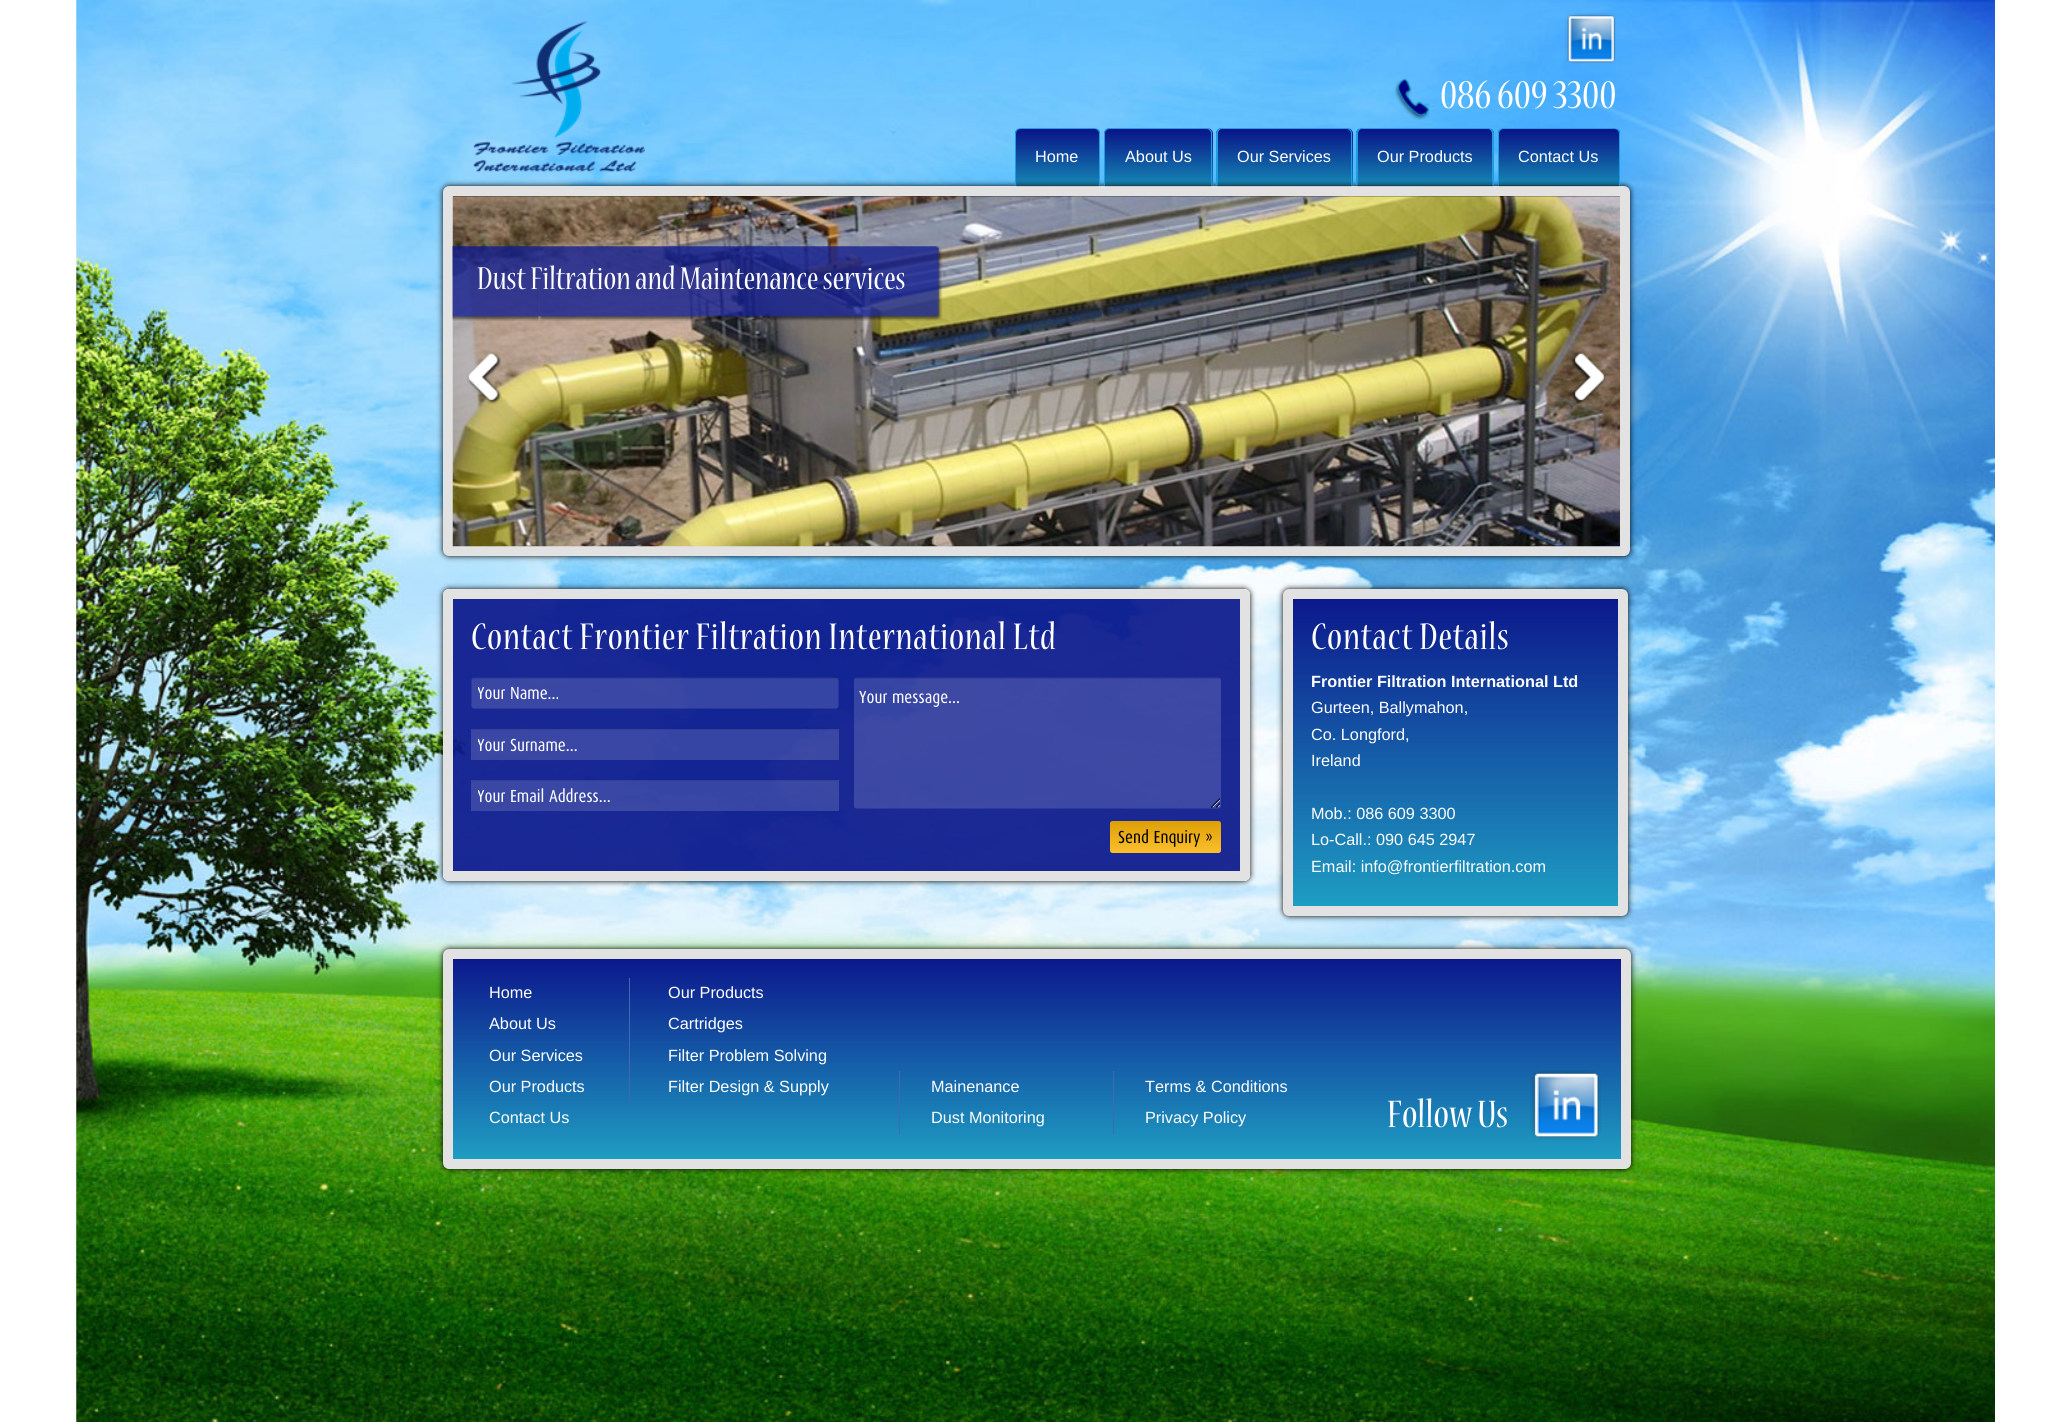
#include <cairo.h>
#include <math.h>
#include <stddef.h>


static void rgb(cairo_t *cr, int r, int g, int b)
{
	cairo_set_source_rgb(cr, r / 255.0, g / 255.0, b / 255.0);
}

static void face(cairo_t *cr, const char *family, double size, int italic, int bold)
{
	cairo_select_font_face(cr, family, italic ? CAIRO_FONT_SLANT_ITALIC : CAIRO_FONT_SLANT_NORMAL,
		bold ? CAIRO_FONT_WEIGHT_BOLD : CAIRO_FONT_WEIGHT_NORMAL);
	cairo_set_font_size(cr, size);
}

static void label(cairo_t *cr, double x, double y, const char *s)
{
	cairo_move_to(cr, x, y);
	cairo_show_text(cr, s);
}

static void tracked(cairo_t *cr, double x, double y, const char *s, double letter, double word)
{
	cairo_move_to(cr, x, y);
	while (*s) {
		char ch[5] = {0};
		int n = 0;
		do ch[n++] = *s++; while ((*s & 0xC0) == 0x80);
		cairo_show_text(cr, ch);
		cairo_rel_move_to(cr, letter + word * (*ch == ' '), 0);
	}
}

static void rect(cairo_t *cr, double x, double y, double w, double h)
{
	cairo_rectangle(cr, x, y, w, h);
	cairo_fill(cr);
}

static void rrect(cairo_t *cr, double x, double y, double w, double h, double r)
{
	cairo_new_sub_path(cr);
	cairo_arc(cr, x + w - r, y + h - r, r, 0, M_PI / 2);
	cairo_arc(cr, x + r, y + h - r, r, M_PI / 2, M_PI);
	cairo_arc(cr, x + r, y + r, r, M_PI, 1.5 * M_PI);
	cairo_arc(cr, x + w - r, y + r, r, 1.5 * M_PI, 2 * M_PI);
	cairo_close_path(cr);
}

static void soft_shadow(cairo_t *cr, double x, double y, double w, double h, double r, double blur, double alpha)
{
	cairo_push_group_with_content(cr, CAIRO_CONTENT_ALPHA);
	cairo_set_operator(cr, CAIRO_OPERATOR_SOURCE);
	for (int i = 15; i >= -15 && fmin(w, h) + blur * i / 3 > 0; i -= 2) {
		double e = blur * i / 6;
		cairo_set_source_rgba(cr, 0, 0, 0, alpha * erfc((i - 1) / 8.5) / 2);
		rrect(cr, x - e, y - e, w + 2 * e, h + 2 * e, fmax(0, fmin(r + e + blur * .6, fmin(w, h) / 2 + e)));
		cairo_fill(cr);
	}
	cairo_pattern_t *soft = cairo_pop_group(cr);
	cairo_mask(cr, soft);
	cairo_pattern_destroy(soft);
}

static void image(cairo_t *cr, const char *path, double x, double y, double w, double h)
{
	cairo_surface_t *image = cairo_image_surface_create_from_png(path);
	cairo_save(cr);
	cairo_set_source_surface(cr, image, x, y);
	cairo_rectangle(cr, x, y, w, h);
	cairo_fill(cr);
	cairo_restore(cr);
	cairo_surface_destroy(image);
}

static void draw(cairo_t *cr) {
	cairo_pattern_t *gradient;
	rgb(cr, 255, 255, 255);
	cairo_paint(cr);
	image(cr, "image0.png", 76, 0, 1919, 1422);
	image(cr, "image1.png", 473, 21, 172, 151);
	image(cr, "image2.png", 1565, 13, 51, 50);
	image(cr, "image3.png", 1395, 78, 35, 42);
	face(cr, "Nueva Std", 45, 0, 0);
	rgb(cr, 255, 255, 255);
	label(cr, 1440, 108, "086 609 3300");
	rgb(cr, 0, 0, 0);
	soft_shadow(cr, 443, 186, 1187, 370, 6, 3, 1);
	cairo_save(cr);
	cairo_new_path(cr);
	cairo_move_to(cr, 1021, 128);
	cairo_line_to(cr, 1094, 128);
	cairo_curve_to(cr, 1097.5, 128, 1100, 130.5, 1100, 134);
	cairo_line_to(cr, 1100, 185);
	cairo_line_to(cr, 1015, 185);
	cairo_line_to(cr, 1015, 134);
	cairo_curve_to(cr, 1015, 130.5, 1017.5, 128, 1021, 128);
	cairo_close_path(cr);
	cairo_clip(cr);
	gradient = cairo_pattern_create_linear(1058, 129, 1058, 185);
	cairo_pattern_add_color_stop_rgba(gradient, 0, 0.031, 0.075, 0.533, 1);
	cairo_pattern_add_color_stop_rgba(gradient, 1, 0.082, 0.525, 0.702, 1);
	cairo_set_source(cr, gradient);
	cairo_pattern_destroy(gradient);
	rect(cr, 1015, 129, 85, 56);
	cairo_restore(cr);
	rgb(cr, 31, 157, 226);
	cairo_set_fill_rule(cr, CAIRO_FILL_RULE_EVEN_ODD);
	cairo_new_path(cr);
	cairo_move_to(cr, 1021, 128);
	cairo_line_to(cr, 1094, 128);
	cairo_curve_to(cr, 1097, 128, 1100, 130, 1100, 134);
	cairo_line_to(cr, 1100, 185);
	cairo_line_to(cr, 1015, 185);
	cairo_line_to(cr, 1015, 134);
	cairo_curve_to(cr, 1015, 130, 1018, 128, 1021, 128);
	cairo_close_path(cr);
	cairo_move_to(cr, 1021, 129);
	cairo_line_to(cr, 1094, 129);
	cairo_curve_to(cr, 1097, 129, 1099, 131, 1099, 134);
	cairo_line_to(cr, 1099, 185);
	cairo_line_to(cr, 1016, 185);
	cairo_line_to(cr, 1016, 134);
	cairo_curve_to(cr, 1016, 131, 1018, 129, 1021, 129);
	cairo_close_path(cr);
	cairo_fill(cr);
	rrect(cr, 448, 191, 1177, 360, 1);
	rgb(cr, 226, 226, 226);
	cairo_set_line_width(cr, 10);
	cairo_stroke(cr);
	image(cr, "image4.png", 1016, 181, 83, 6);
	face(cr, "Liberation Sans", 16.25, 0, 0);
	rgb(cr, 255, 255, 255);
	label(cr, 1035, 162, "Home");
	cairo_save(cr);
	cairo_set_fill_rule(cr, CAIRO_FILL_RULE_WINDING);
	cairo_new_path(cr);
	cairo_move_to(cr, 1110, 128);
	cairo_line_to(cr, 1207, 128);
	cairo_curve_to(cr, 1210.5, 128, 1213, 130.5, 1213, 134);
	cairo_line_to(cr, 1213, 185);
	cairo_line_to(cr, 1104, 185);
	cairo_line_to(cr, 1104, 134);
	cairo_curve_to(cr, 1104, 130.5, 1106.5, 128, 1110, 128);
	cairo_close_path(cr);
	cairo_clip(cr);
	gradient = cairo_pattern_create_linear(1158, 73, 1158, 129);
	cairo_pattern_add_color_stop_rgba(gradient, 0, 0.031, 0.075, 0.533, 1);
	cairo_pattern_add_color_stop_rgba(gradient, 1, 0.082, 0.525, 0.702, 1);
	cairo_set_source(cr, gradient);
	cairo_pattern_destroy(gradient);
	rect(cr, 1104, 128, 109, 1);
	gradient = cairo_pattern_create_linear(1158, 129, 1158, 185);
	cairo_pattern_add_color_stop_rgba(gradient, 0, 0.031, 0.075, 0.533, 1);
	cairo_pattern_add_color_stop_rgba(gradient, 1, 0.082, 0.525, 0.702, 1);
	cairo_set_source(cr, gradient);
	cairo_pattern_destroy(gradient);
	rect(cr, 1104, 129, 109, 56);
	cairo_restore(cr);
	rgb(cr, 31, 157, 226);
	cairo_new_path(cr);
	cairo_move_to(cr, 1110, 128);
	cairo_line_to(cr, 1206, 128);
	cairo_curve_to(cr, 1210, 128, 1212, 130, 1212, 134);
	cairo_line_to(cr, 1212, 185);
	cairo_line_to(cr, 1104, 185);
	cairo_line_to(cr, 1104, 134);
	cairo_curve_to(cr, 1104, 130, 1107, 128, 1110, 128);
	cairo_close_path(cr);
	cairo_move_to(cr, 1110, 129);
	cairo_line_to(cr, 1206, 129);
	cairo_curve_to(cr, 1209, 129, 1211, 131, 1211, 134);
	cairo_line_to(cr, 1211, 185);
	cairo_line_to(cr, 1105, 185);
	cairo_line_to(cr, 1105, 134);
	cairo_curve_to(cr, 1105, 131, 1107, 129, 1110, 129);
	cairo_close_path(cr);
	cairo_fill(cr);
	image(cr, "image5.png", 1105, 181, 107, 6);
	rgb(cr, 255, 255, 255);
	label(cr, 1125, 162, "About Us");
	cairo_save(cr);
	cairo_set_fill_rule(cr, CAIRO_FILL_RULE_WINDING);
	cairo_new_path(cr);
	cairo_move_to(cr, 1222, 128);
	cairo_line_to(cr, 1347, 128);
	cairo_curve_to(cr, 1350.5, 128, 1353, 130.5, 1353, 134);
	cairo_line_to(cr, 1353, 185);
	cairo_line_to(cr, 1216, 185);
	cairo_line_to(cr, 1216, 134);
	cairo_curve_to(cr, 1216, 130.5, 1218.5, 128, 1222, 128);
	cairo_close_path(cr);
	cairo_clip(cr);
	gradient = cairo_pattern_create_linear(1284, 72, 1284, 129);
	cairo_pattern_add_color_stop_rgba(gradient, 0, 0.031, 0.075, 0.533, 1);
	cairo_pattern_add_color_stop_rgba(gradient, 1, 0.082, 0.525, 0.702, 1);
	cairo_set_source(cr, gradient);
	cairo_pattern_destroy(gradient);
	rect(cr, 1216, 128, 137, 1);
	gradient = cairo_pattern_create_linear(1284, 129, 1284, 185);
	cairo_pattern_add_color_stop_rgba(gradient, 0, 0.031, 0.075, 0.533, 1);
	cairo_pattern_add_color_stop_rgba(gradient, 1, 0.082, 0.525, 0.702, 1);
	cairo_set_source(cr, gradient);
	cairo_pattern_destroy(gradient);
	rect(cr, 1216, 129, 137, 56);
	cairo_restore(cr);
	rgb(cr, 31, 157, 226);
	cairo_new_path(cr);
	cairo_move_to(cr, 1222, 128);
	cairo_line_to(cr, 1346, 128);
	cairo_curve_to(cr, 1350, 128, 1352, 130, 1352, 134);
	cairo_line_to(cr, 1352, 185);
	cairo_line_to(cr, 1216, 185);
	cairo_line_to(cr, 1216, 134);
	cairo_curve_to(cr, 1216, 130, 1219, 128, 1222, 128);
	cairo_close_path(cr);
	cairo_move_to(cr, 1222, 129);
	cairo_line_to(cr, 1346, 129);
	cairo_curve_to(cr, 1349, 129, 1351, 131, 1351, 134);
	cairo_line_to(cr, 1351, 185);
	cairo_line_to(cr, 1218, 185);
	cairo_line_to(cr, 1218, 134);
	cairo_curve_to(cr, 1218, 131, 1220, 129, 1222, 129);
	cairo_close_path(cr);
	cairo_fill(cr);
	image(cr, "image6.png", 1217, 181, 135, 6);
	rgb(cr, 255, 255, 255);
	label(cr, 1237, 162, "Our Services");
	cairo_save(cr);
	cairo_set_fill_rule(cr, CAIRO_FILL_RULE_WINDING);
	cairo_new_path(cr);
	cairo_move_to(cr, 1362, 128);
	cairo_line_to(cr, 1488, 128);
	cairo_curve_to(cr, 1491.5, 128, 1494, 130.5, 1494, 134);
	cairo_line_to(cr, 1494, 185);
	cairo_line_to(cr, 1356, 185);
	cairo_line_to(cr, 1356, 134);
	cairo_curve_to(cr, 1356, 130.5, 1358.5, 128, 1362, 128);
	cairo_close_path(cr);
	cairo_clip(cr);
	gradient = cairo_pattern_create_linear(1425, 129, 1425, 185);
	cairo_pattern_add_color_stop_rgba(gradient, 0, 0.031, 0.075, 0.533, 1);
	cairo_pattern_add_color_stop_rgba(gradient, 1, 0.082, 0.525, 0.702, 1);
	cairo_set_source(cr, gradient);
	cairo_pattern_destroy(gradient);
	rect(cr, 1356, 129, 138, 56);
	cairo_restore(cr);
	rgb(cr, 31, 157, 226);
	cairo_new_path(cr);
	cairo_move_to(cr, 1362, 128);
	cairo_line_to(cr, 1488, 128);
	cairo_curve_to(cr, 1491, 128, 1494, 130, 1494, 134);
	cairo_line_to(cr, 1494, 185);
	cairo_line_to(cr, 1356, 185);
	cairo_line_to(cr, 1356, 134);
	cairo_curve_to(cr, 1356, 130, 1359, 128, 1362, 128);
	cairo_close_path(cr);
	cairo_move_to(cr, 1362, 129);
	cairo_line_to(cr, 1488, 129);
	cairo_curve_to(cr, 1490, 129, 1492, 131, 1492, 134);
	cairo_line_to(cr, 1492, 185);
	cairo_line_to(cr, 1358, 185);
	cairo_line_to(cr, 1358, 134);
	cairo_curve_to(cr, 1358, 131, 1360, 129, 1362, 129);
	cairo_close_path(cr);
	cairo_fill(cr);
	image(cr, "image7.png", 1357, 181, 136, 6);
	rgb(cr, 255, 255, 255);
	label(cr, 1377, 162, "Our Products");
	cairo_save(cr);
	cairo_set_fill_rule(cr, CAIRO_FILL_RULE_WINDING);
	cairo_new_path(cr);
	cairo_move_to(cr, 1504, 128);
	cairo_line_to(cr, 1614, 128);
	cairo_curve_to(cr, 1617.5, 128, 1620, 130.5, 1620, 134);
	cairo_line_to(cr, 1620, 185);
	cairo_line_to(cr, 1498, 185);
	cairo_line_to(cr, 1498, 134);
	cairo_curve_to(cr, 1498, 130.5, 1500.5, 128, 1504, 128);
	cairo_close_path(cr);
	cairo_clip(cr);
	gradient = cairo_pattern_create_linear(1559, 129, 1559, 185);
	cairo_pattern_add_color_stop_rgba(gradient, 0, 0.031, 0.075, 0.533, 1);
	cairo_pattern_add_color_stop_rgba(gradient, 1, 0.082, 0.525, 0.702, 1);
	cairo_set_source(cr, gradient);
	cairo_pattern_destroy(gradient);
	rect(cr, 1498, 129, 122, 56);
	cairo_restore(cr);
	rgb(cr, 31, 157, 226);
	cairo_new_path(cr);
	cairo_move_to(cr, 1504, 128);
	cairo_line_to(cr, 1614, 128);
	cairo_curve_to(cr, 1617, 128, 1620, 130, 1620, 134);
	cairo_line_to(cr, 1620, 185);
	cairo_line_to(cr, 1498, 185);
	cairo_line_to(cr, 1498, 134);
	cairo_curve_to(cr, 1498, 130, 1500, 128, 1504, 128);
	cairo_close_path(cr);
	cairo_move_to(cr, 1504, 129);
	cairo_line_to(cr, 1614, 129);
	cairo_curve_to(cr, 1617, 129, 1619, 131, 1619, 134);
	cairo_line_to(cr, 1619, 185);
	cairo_line_to(cr, 1499, 185);
	cairo_line_to(cr, 1499, 134);
	cairo_curve_to(cr, 1499, 131, 1501, 129, 1504, 129);
	cairo_close_path(cr);
	cairo_fill(cr);
	image(cr, "image8.png", 1498, 181, 121, 6);
	rgb(cr, 255, 255, 255);
	label(cr, 1518, 162, "Contact Us");
	image(cr, "image9.png", 452, 246, 1, 74);
	image(cr, "image10.png", 452, 196, 1168, 351);
	image(cr, "image11.png", 452, 246, 491, 75);
	face(cr, "Nueva Std", 35, 0, 0);
	label(cr, 477, 289, "Dust Filtration and Maintenance services");
	image(cr, "image12.png", 467, 352, 35, 52);
	image(cr, "image13.png", 1571, 352, 34, 52);
	cairo_save(cr);
	cairo_new_path(cr);
	cairo_move_to(cr, 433, 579);
	cairo_line_to(cr, 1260, 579);
	cairo_line_to(cr, 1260, 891);
	cairo_line_to(cr, 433, 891);
	cairo_close_path(cr);
	cairo_move_to(cr, 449, 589);
	cairo_line_to(cr, 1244, 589);
	cairo_curve_to(cr, 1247.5, 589, 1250, 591.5, 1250, 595);
	cairo_line_to(cr, 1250, 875);
	cairo_curve_to(cr, 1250, 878.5, 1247.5, 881, 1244, 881);
	cairo_line_to(cr, 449, 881);
	cairo_curve_to(cr, 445.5, 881, 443, 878.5, 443, 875);
	cairo_line_to(cr, 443, 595);
	cairo_curve_to(cr, 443, 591.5, 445.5, 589, 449, 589);
	cairo_close_path(cr);
	cairo_clip(cr);
	rgb(cr, 0, 0, 0);
	soft_shadow(cr, 443, 589, 807, 292, 6, 3, 1);
	cairo_restore(cr);
	cairo_set_source_rgba(cr, 0.047, 0.102, 0.553, 0.93);
	rrect(cr, 448, 594, 797, 282, 1);
	cairo_fill_preserve(cr);
	rgb(cr, 226, 226, 226);
	cairo_stroke(cr);
	face(cr, "Nueva Std", 41.25, 0, 0);
	rgb(cr, 255, 255, 255);
	tracked(cr, 471, 649, "Contact Frontier Filtration International Ltd", 0.85, 0);
	image(cr, "image14.png", 471, 677, 368, 32);
	cairo_set_source_rgba(cr, 0, 0, 0, 0.1);
	cairo_set_fill_rule(cr, CAIRO_FILL_RULE_WINDING);
	cairo_new_path(cr);
	cairo_move_to(cr, 475, 679);
	cairo_line_to(cr, 835, 679);
	cairo_curve_to(cr, 837, 679, 839, 680, 839, 682);
	cairo_curve_to(cr, 839, 680, 837, 678, 835, 678);
	cairo_line_to(cr, 475, 678);
	cairo_curve_to(cr, 473, 678, 471, 680, 471, 682);
	cairo_curve_to(cr, 471, 680, 473, 679, 475, 679);
	cairo_close_path(cr);
	cairo_fill(cr);
	cairo_save(cr);
	cairo_rectangle(cr, 478, 684, 355, 19);
	cairo_clip(cr);
	face(cr, "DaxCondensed", 17.5, 0, 0);
	rgb(cr, 255, 255, 255);
	label(cr, 477, 699, "Your Name...");
	cairo_restore(cr);
	image(cr, "image15.png", 854, 677, 367, 132);
	cairo_new_path(cr);
	cairo_move_to(cr, 858, 679);
	cairo_line_to(cr, 1219, 679);
	cairo_line_to(cr, 1220, 680);
	cairo_curve_to(cr, 1220, 679, 1218, 678, 1217, 678);
	cairo_line_to(cr, 858, 678);
	cairo_curve_to(cr, 856, 678, 855, 679, 854, 680);
	cairo_curve_to(cr, 855, 679, 856, 679, 858, 679);
	cairo_close_path(cr);
	cairo_fill(cr);
	face(cr, "DaxCondensed", 17.5, 0, 0);
	rgb(cr, 255, 255, 255);
	label(cr, 859, 703, "Your message...");
	cairo_set_source_rgba(cr, 1, 1, 1, 0.15);
	rect(cr, 471, 729, 368, 31);
	cairo_set_source_rgba(cr, 0, 0, 0, 0.1);
	cairo_new_path(cr);
	cairo_move_to(cr, 475, 730);
	cairo_line_to(cr, 835, 730);
	cairo_curve_to(cr, 837, 730, 839, 732, 839, 734);
	cairo_curve_to(cr, 839, 731, 838, 729, 835, 729);
	cairo_line_to(cr, 475, 729);
	cairo_curve_to(cr, 472, 729, 471, 731, 471, 734);
	cairo_curve_to(cr, 471, 732, 473, 730, 475, 730);
	cairo_close_path(cr);
	cairo_fill(cr);
	cairo_save(cr);
	cairo_rectangle(cr, 478, 735, 355, 19);
	cairo_clip(cr);
	rgb(cr, 255, 255, 255);
	label(cr, 477, 751, "Your Surname...");
	cairo_restore(cr);
	cairo_set_source_rgba(cr, 1, 1, 1, 0.15);
	rect(cr, 471, 780, 368, 31);
	cairo_set_source_rgba(cr, 0, 0, 0, 0.1);
	cairo_new_path(cr);
	cairo_move_to(cr, 475, 781);
	cairo_line_to(cr, 835, 781);
	cairo_curve_to(cr, 837, 781, 839, 783, 839, 785);
	cairo_curve_to(cr, 839, 782, 838, 780, 835, 780);
	cairo_line_to(cr, 475, 780);
	cairo_curve_to(cr, 472, 780, 471, 782, 471, 785);
	cairo_curve_to(cr, 471, 783, 473, 781, 475, 781);
	cairo_close_path(cr);
	cairo_fill(cr);
	cairo_save(cr);
	cairo_rectangle(cr, 478, 786, 355, 19);
	cairo_clip(cr);
	rgb(cr, 255, 255, 255);
	label(cr, 477, 802, "Your Email Address...");
	cairo_restore(cr);
	gradient = cairo_pattern_create_linear(1166, 821, 1166, 853);
	cairo_pattern_add_color_stop_rgba(gradient, 0, 0.871, 0.624, 0.024, 1);
	cairo_pattern_add_color_stop_rgba(gradient, 1, 0.984, 0.749, 0.176, 1);
	cairo_set_source(cr, gradient);
	cairo_pattern_destroy(gradient);
	rrect(cr, 1110, 821, 111, 32, 2.5);
	cairo_fill(cr);
	rgb(cr, 0, 0, 0);
	label(cr, 1118, 843, "Send Enquiry »");
	rgb(cr, 0, 0, 0);
	soft_shadow(cr, 1283, 589, 345, 327, 6, 3, 1);
	gradient = cairo_pattern_create_linear(1455, 599, 1455, 906);
	cairo_pattern_add_color_stop_rgba(gradient, 0, 0.047, 0.094, 0.549, 1);
	cairo_pattern_add_color_stop_rgba(gradient, 1, 0.118, 0.616, 0.761, 1);
	cairo_set_source(cr, gradient);
	cairo_pattern_destroy(gradient);
	rect(cr, 1293, 599, 325, 307);
	rrect(cr, 1288, 594, 335, 317, 1);
	rgb(cr, 226, 226, 226);
	cairo_stroke(cr);
	face(cr, "Nueva Std", 41.25, 0, 0);
	rgb(cr, 255, 255, 255);
	tracked(cr, 1311, 649, "Contact Details", 0.85, 0);
	face(cr, "Liberation Sans", 16.25, 0, 1);
	label(cr, 1311, 687, "Frontier Filtration International Ltd");
	face(cr, "Liberation Sans", 16.25, 0, 0);
	label(cr, 1311, 713, "Gurteen, Ballymahon,");
	label(cr, 1311, 740, "Co. Longford,");
	label(cr, 1311, 766, "Ireland");
	label(cr, 1311, 819, "Mob.: 086 609 3300");
	label(cr, 1311, 845, "Lo-Call.: 090 645 2947");
	label(cr, 1311, 872, "Email: info@frontierfiltration.com");
	rgb(cr, 0, 0, 0);
	soft_shadow(cr, 443, 949, 1188, 220, 6, 3, 1);
	gradient = cairo_pattern_create_linear(1037, 959, 1037, 1159);
	cairo_pattern_add_color_stop_rgba(gradient, 0, 0.047, 0.094, 0.549, 1);
	cairo_pattern_add_color_stop_rgba(gradient, 1, 0.118, 0.616, 0.761, 1);
	cairo_set_source(cr, gradient);
	cairo_pattern_destroy(gradient);
	rect(cr, 453, 959, 1168, 200);
	rrect(cr, 448, 954, 1178, 210, 1);
	rgb(cr, 226, 226, 226);
	cairo_stroke(cr);
	rgb(cr, 255, 255, 255);
	label(cr, 489, 998, "Home");
	label(cr, 489, 1029, "About Us");
	label(cr, 489, 1061, "Our Services");
	label(cr, 489, 1092, "Our Products");
	label(cr, 489, 1123, "Contact Us");
	rgb(cr, 65, 104, 177);
	rect(cr, 629, 978, 1, 125);
	rgb(cr, 255, 255, 255);
	label(cr, 668, 998, "Our Products");
	label(cr, 668, 1029, "Cartridges");
	label(cr, 668, 1061, "Filter Problem Solving");
	label(cr, 668, 1092, "Filter Design & Supply");
	rgb(cr, 65, 104, 177);
	rect(cr, 899, 1071, 1, 63);
	rgb(cr, 255, 255, 255);
	label(cr, 931, 1092, "Mainenance");
	label(cr, 931, 1123, "Dust Monitoring");
	rgb(cr, 65, 104, 177);
	rect(cr, 1113, 1071, 1, 63);
	rgb(cr, 255, 255, 255);
	label(cr, 1145, 1092, "Terms & Conditions");
	label(cr, 1145, 1123, "Privacy Policy");
	face(cr, "Nueva Std", 42.5, 0, 0);
	label(cr, 1387, 1127, "Follow Us");
	image(cr, "image16.png", 1530, 1070, 71, 70);
}

int main(void) {
	cairo_surface_t *surface = cairo_image_surface_create(CAIRO_FORMAT_RGB24, 2071, 1422);
	cairo_t *cr = cairo_create(surface);
	cairo_font_options_t *options = cairo_font_options_create();
	cairo_font_options_set_hint_metrics(options, CAIRO_HINT_METRICS_OFF);
	cairo_font_options_set_hint_style(options, CAIRO_HINT_STYLE_NONE);
	cairo_set_font_options(cr, options);
	cairo_set_miter_limit(cr, 4);
	draw(cr);
	cairo_surface_write_to_png(surface, "render.png");
	cairo_font_options_destroy(options);
	cairo_destroy(cr);
	cairo_surface_destroy(surface);
	return 0;
}
